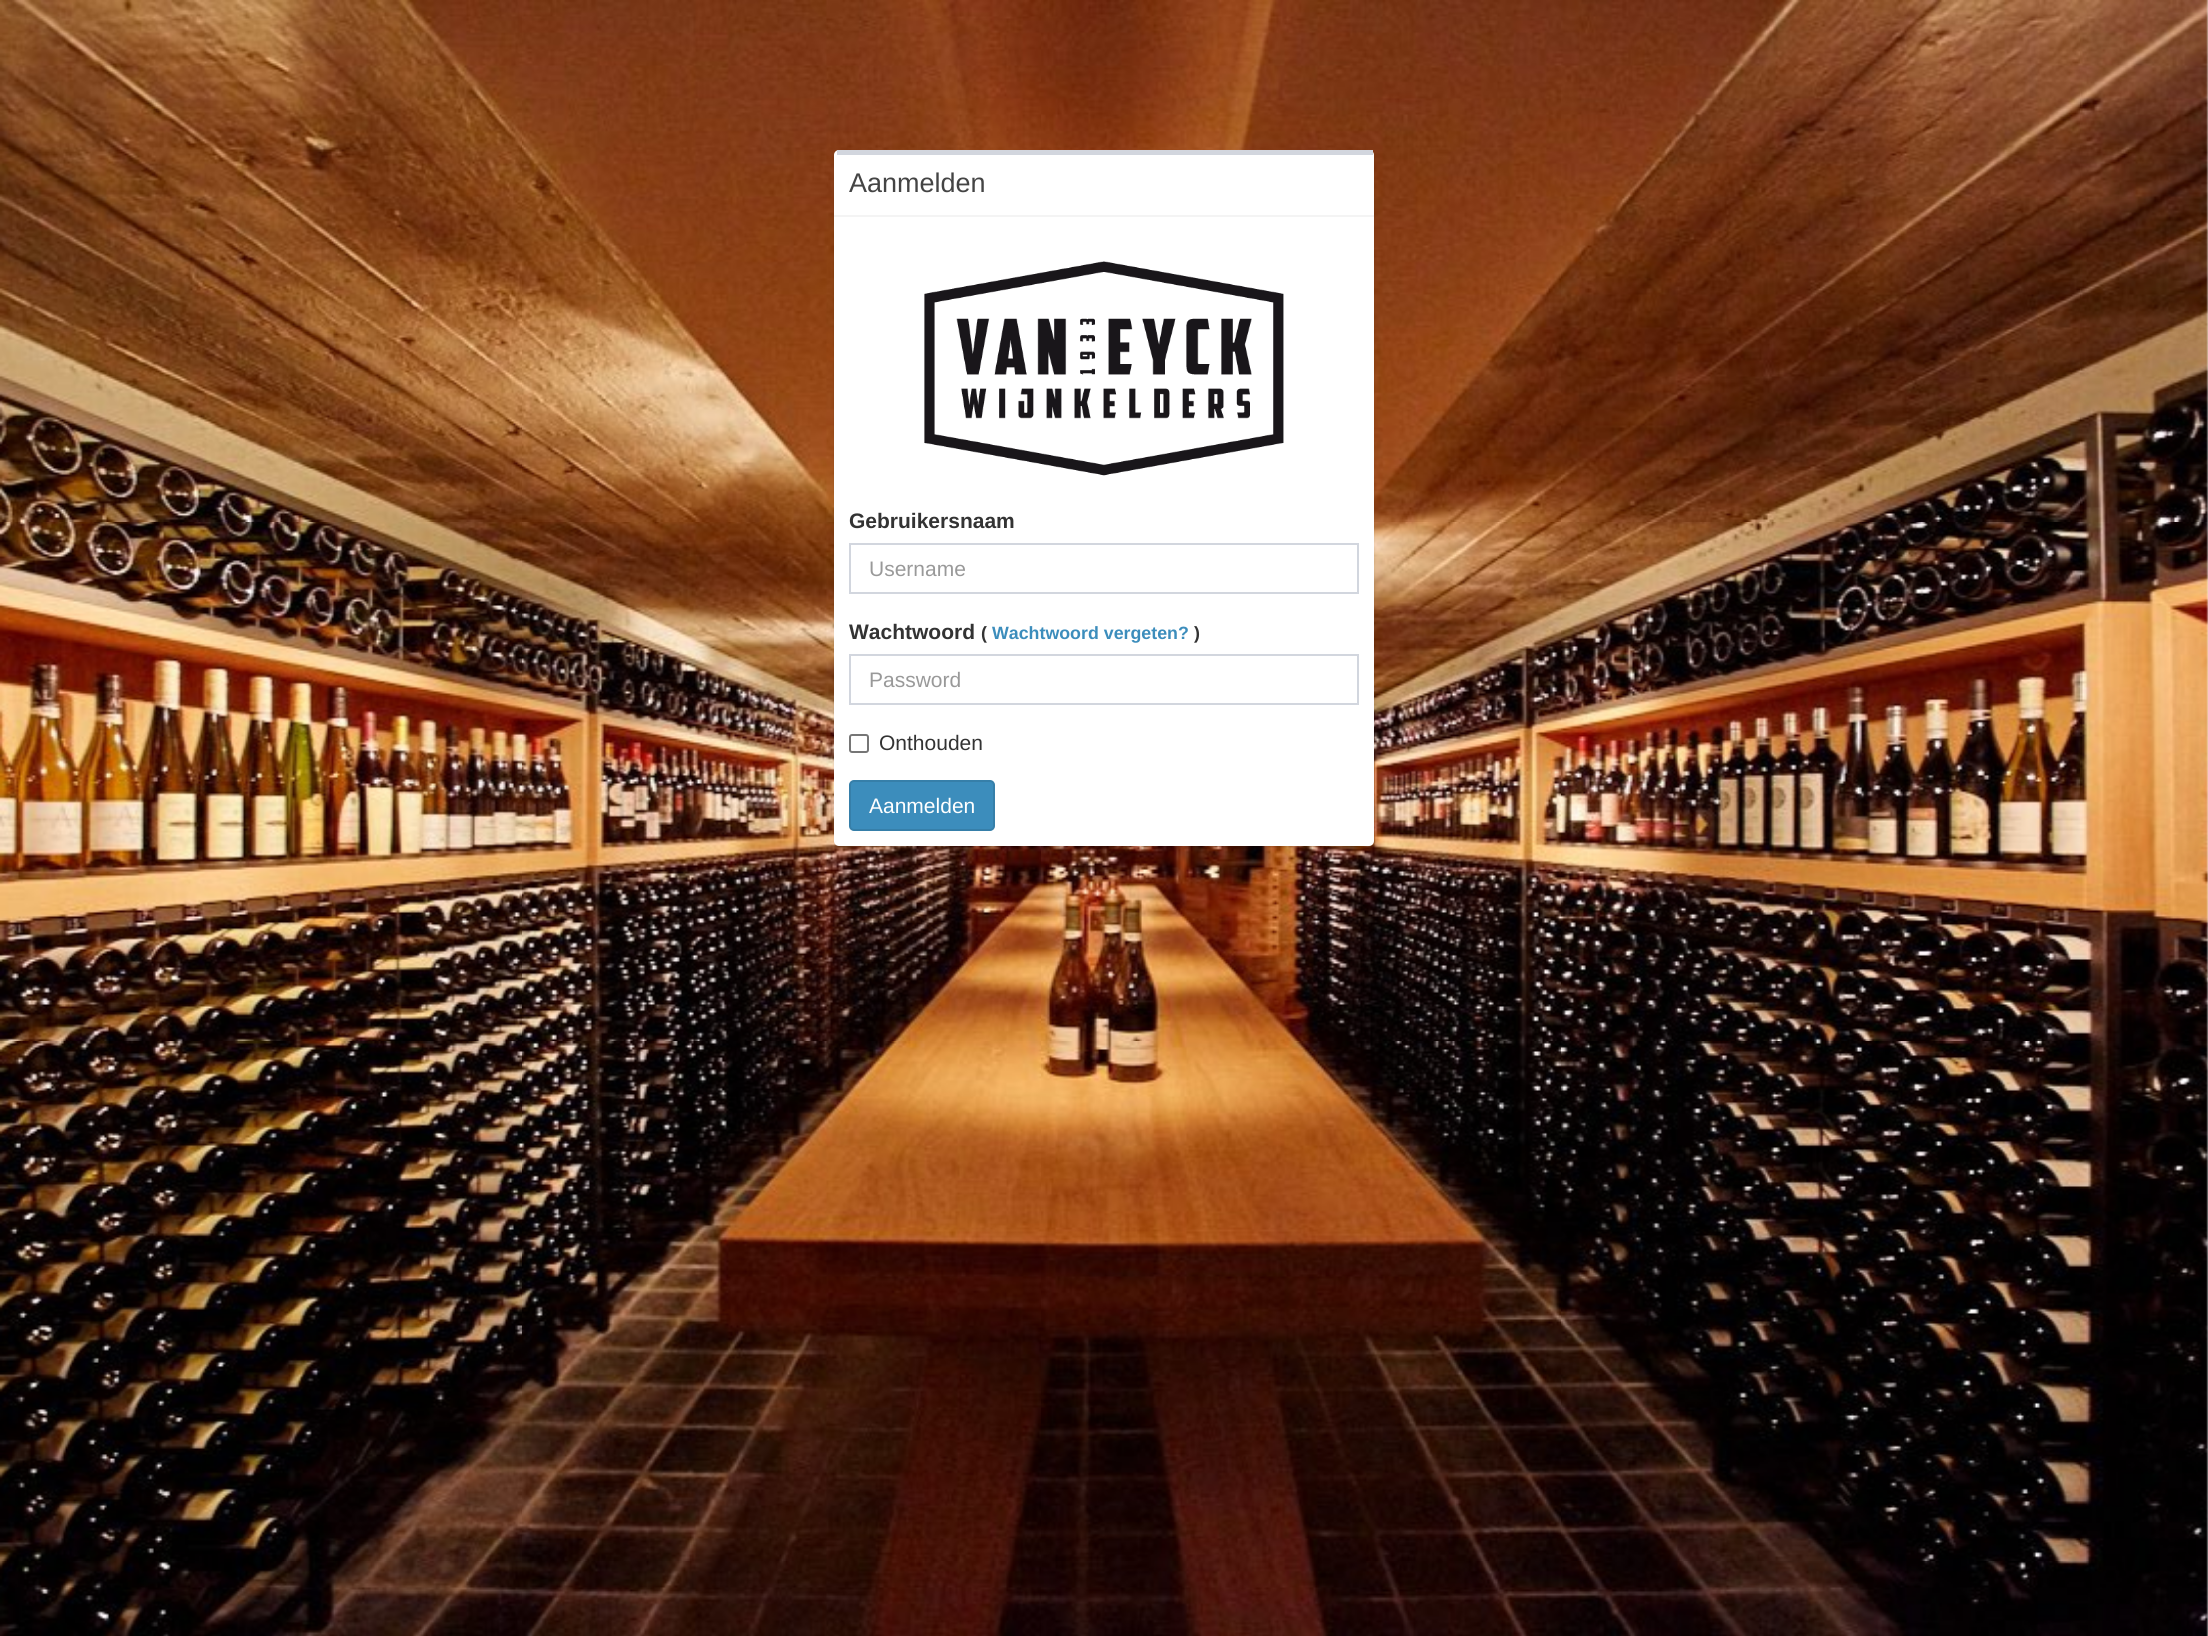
#include <cairo.h>
#include <math.h>
#include <stddef.h>


static void rgb(cairo_t *cr, int r, int g, int b)
{
	cairo_set_source_rgb(cr, r / 255.0, g / 255.0, b / 255.0);
}

static void face(cairo_t *cr, const char *family, double size, int italic, int bold)
{
	cairo_select_font_face(cr, family, italic ? CAIRO_FONT_SLANT_ITALIC : CAIRO_FONT_SLANT_NORMAL,
		bold ? CAIRO_FONT_WEIGHT_BOLD : CAIRO_FONT_WEIGHT_NORMAL);
	cairo_set_font_size(cr, size);
}

static void label(cairo_t *cr, double x, double y, const char *s)
{
	cairo_move_to(cr, x, y);
	cairo_show_text(cr, s);
}

static void rect(cairo_t *cr, double x, double y, double w, double h)
{
	cairo_rectangle(cr, x, y, w, h);
	cairo_fill(cr);
}

static void rrect(cairo_t *cr, double x, double y, double w, double h, double r)
{
	cairo_new_sub_path(cr);
	cairo_arc(cr, x + w - r, y + h - r, r, 0, M_PI / 2);
	cairo_arc(cr, x + r, y + h - r, r, M_PI / 2, M_PI);
	cairo_arc(cr, x + r, y + r, r, M_PI, 1.5 * M_PI);
	cairo_arc(cr, x + w - r, y + r, r, 1.5 * M_PI, 2 * M_PI);
	cairo_close_path(cr);
}

static void soft_shadow(cairo_t *cr, double x, double y, double w, double h, double r, double blur, double alpha)
{
	cairo_push_group_with_content(cr, CAIRO_CONTENT_ALPHA);
	cairo_set_operator(cr, CAIRO_OPERATOR_SOURCE);
	for (int i = 15; i >= -15 && fmin(w, h) + blur * i / 3 > 0; i -= 2) {
		double e = blur * i / 6;
		cairo_set_source_rgba(cr, 0, 0, 0, alpha * erfc((i - 1) / 8.5) / 2);
		rrect(cr, x - e, y - e, w + 2 * e, h + 2 * e, fmax(0, fmin(r + e + blur * .6, fmin(w, h) / 2 + e)));
		cairo_fill(cr);
	}
	cairo_pattern_t *soft = cairo_pop_group(cr);
	cairo_mask(cr, soft);
	cairo_pattern_destroy(soft);
}

static void image(cairo_t *cr, const char *path, double x, double y, double w, double h)
{
	cairo_surface_t *image = cairo_image_surface_create_from_png(path);
	cairo_save(cr);
	cairo_set_source_surface(cr, image, x, y);
	cairo_rectangle(cr, x, y, w, h);
	cairo_fill(cr);
	cairo_restore(cr);
	cairo_surface_destroy(image);
}

static void draw(cairo_t *cr) {
	rgb(cr, 238, 238, 238);
	cairo_paint(cr);
	image(cr, "image0.png", 0, 0, 2208, 1636);
	rgb(cr, 0, 0, 0);
	soft_shadow(cr, 834, 152, 540, 696, 5, 1, 0.1);
	rgb(cr, 255, 255, 255);
	rrect(cr, 834, 150, 540, 696, 5);
	cairo_fill(cr);
	rgb(cr, 210, 214, 222);
	rect(cr, 837, 150, 536, 5);
	rgb(cr, 244, 244, 244);
	rect(cr, 834, 215, 540, 2);
	face(cr, "Liberation Sans", 27, 0, 0);
	rgb(cr, 68, 68, 68);
	label(cr, 849, 192, "Aanmelden");
	image(cr, "image1.png", 924, 261, 360, 215);
	face(cr, "Liberation Sans", 21, 0, 1);
	rgb(cr, 51, 51, 51);
	label(cr, 849, 528, "Gebruikersnaam");
	cairo_rectangle(cr, 850, 544, 508, 49);
	rgb(cr, 210, 214, 222);
	cairo_stroke(cr);
	face(cr, "Liberation Sans", 21, 0, 0);
	rgb(cr, 153, 153, 153);
	label(cr, 869, 576, "Username");
	face(cr, "Liberation Sans", 21, 0, 1);
	rgb(cr, 51, 51, 51);
	label(cr, 849, 639, "Wachtwoord");
	face(cr, "Liberation Sans", 17.8, 0, 1);
	label(cr, 981, 639, "(");
	rgb(cr, 60, 141, 188);
	label(cr, 992, 639, "Wachtwoord vergeten?");
	rgb(cr, 51, 51, 51);
	label(cr, 1194, 639, ")");
	cairo_rectangle(cr, 850, 655, 508, 49);
	rgb(cr, 210, 214, 222);
	cairo_stroke(cr);
	face(cr, "Liberation Sans", 21, 0, 0);
	rgb(cr, 153, 153, 153);
	label(cr, 869, 687, "Password");
	rrect(cr, 850, 735, 18, 17, 2);
	rgb(cr, 118, 118, 118);
	cairo_stroke(cr);
	rgb(cr, 51, 51, 51);
	label(cr, 879, 750, "Onthouden");
	rgb(cr, 60, 141, 188);
	rrect(cr, 850, 781, 144, 49, 4);
	cairo_fill_preserve(cr);
	rgb(cr, 54, 127, 169);
	cairo_stroke(cr);
	rgb(cr, 255, 255, 255);
	label(cr, 869, 813, "Aanmelden");
}

int main(void) {
	cairo_surface_t *surface = cairo_image_surface_create(CAIRO_FORMAT_RGB24, 2208, 1636);
	cairo_t *cr = cairo_create(surface);
	cairo_font_options_t *options = cairo_font_options_create();
	cairo_font_options_set_hint_metrics(options, CAIRO_HINT_METRICS_OFF);
	cairo_font_options_set_hint_style(options, CAIRO_HINT_STYLE_NONE);
	cairo_set_font_options(cr, options);
	cairo_set_miter_limit(cr, 4);
	draw(cr);
	cairo_surface_write_to_png(surface, "render.png");
	cairo_font_options_destroy(options);
	cairo_destroy(cr);
	cairo_surface_destroy(surface);
	return 0;
}
